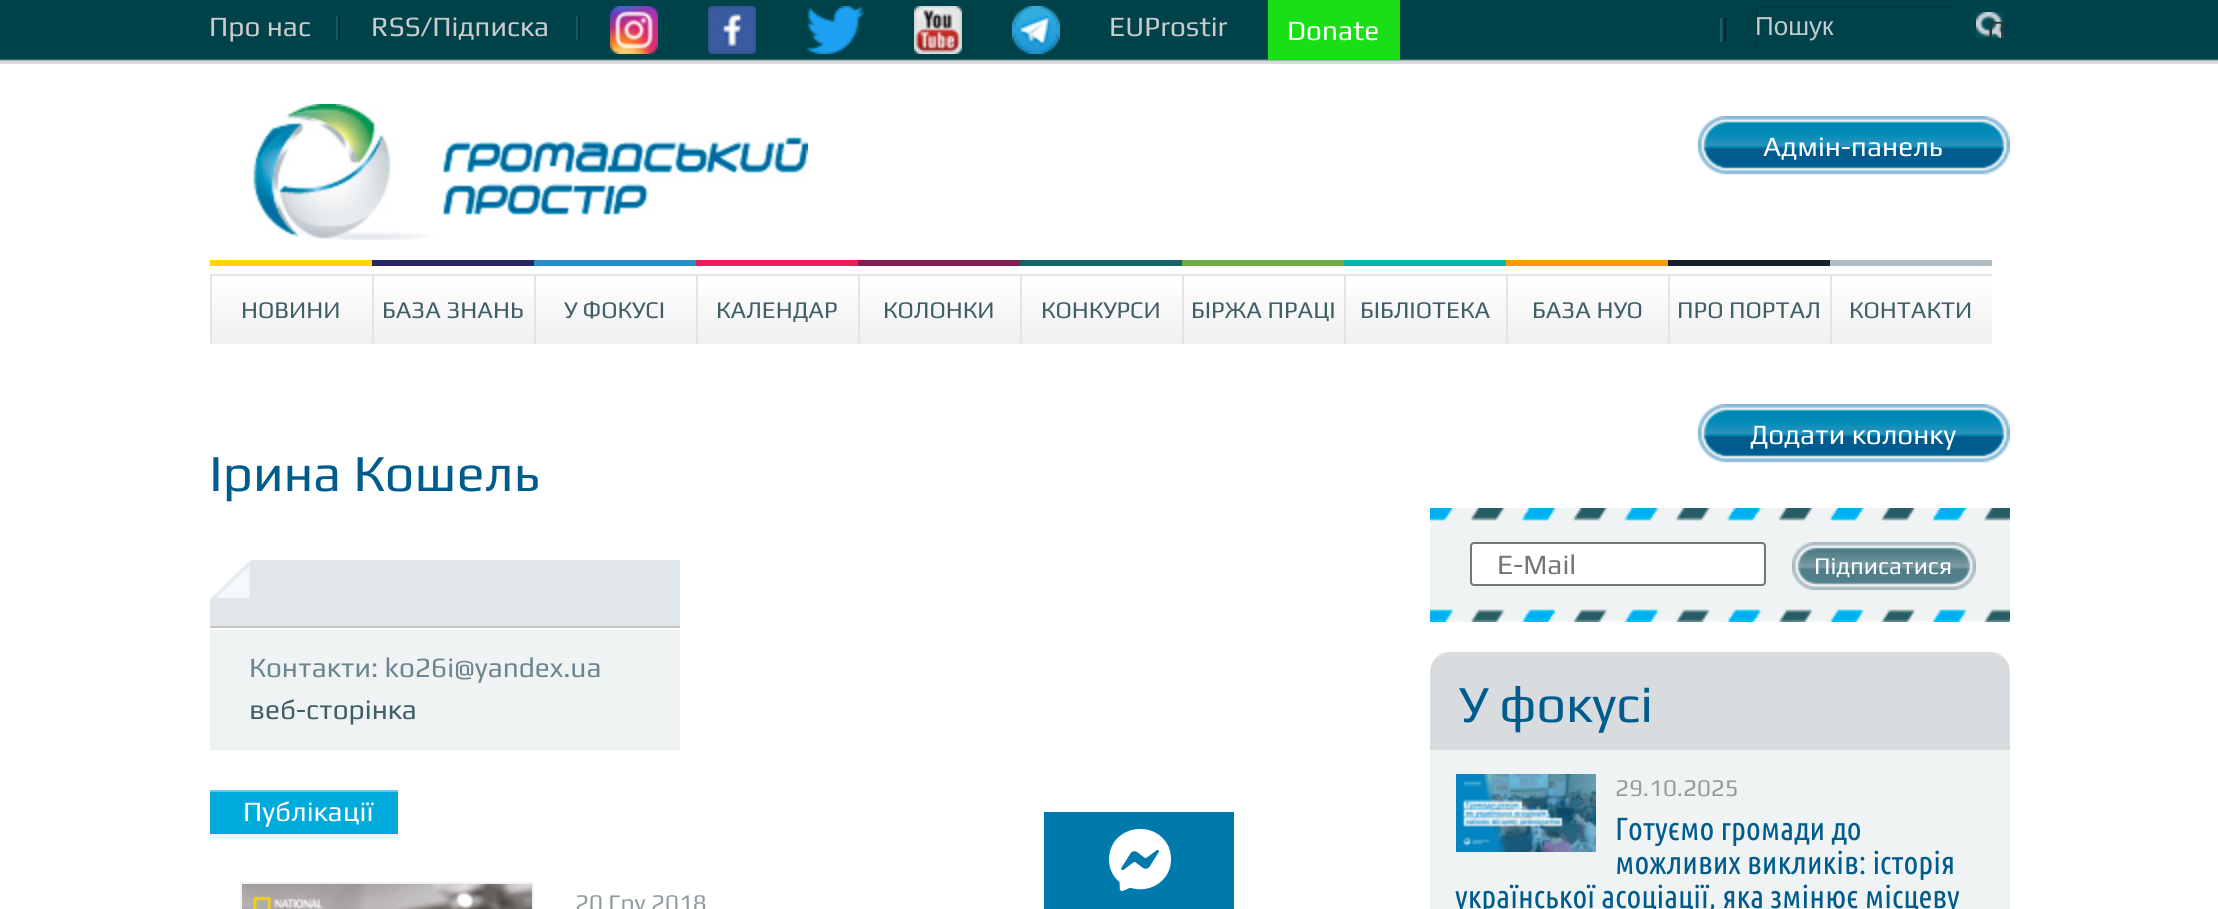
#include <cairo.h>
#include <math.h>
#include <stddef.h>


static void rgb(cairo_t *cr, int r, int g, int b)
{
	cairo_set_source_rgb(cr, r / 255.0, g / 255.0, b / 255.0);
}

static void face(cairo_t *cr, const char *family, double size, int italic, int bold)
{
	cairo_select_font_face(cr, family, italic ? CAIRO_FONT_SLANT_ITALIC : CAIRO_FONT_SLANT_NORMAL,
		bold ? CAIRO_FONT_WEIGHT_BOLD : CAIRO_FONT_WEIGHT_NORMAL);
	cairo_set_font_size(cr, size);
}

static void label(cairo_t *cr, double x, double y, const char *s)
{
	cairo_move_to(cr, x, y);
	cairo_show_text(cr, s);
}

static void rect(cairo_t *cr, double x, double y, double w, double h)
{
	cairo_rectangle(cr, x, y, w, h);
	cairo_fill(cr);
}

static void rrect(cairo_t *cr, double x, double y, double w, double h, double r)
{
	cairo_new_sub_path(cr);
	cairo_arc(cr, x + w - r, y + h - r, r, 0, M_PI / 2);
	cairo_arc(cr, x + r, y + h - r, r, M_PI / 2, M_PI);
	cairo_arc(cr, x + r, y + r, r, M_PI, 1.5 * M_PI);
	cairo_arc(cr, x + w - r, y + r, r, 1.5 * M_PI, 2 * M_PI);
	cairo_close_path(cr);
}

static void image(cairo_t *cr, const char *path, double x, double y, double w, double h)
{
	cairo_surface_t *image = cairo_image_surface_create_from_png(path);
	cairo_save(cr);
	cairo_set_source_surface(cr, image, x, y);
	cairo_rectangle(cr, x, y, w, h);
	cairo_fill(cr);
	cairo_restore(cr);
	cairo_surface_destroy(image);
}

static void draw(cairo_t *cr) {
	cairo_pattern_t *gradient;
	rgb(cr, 255, 255, 255);
	cairo_paint(cr);
	image(cr, "image0.png", 0, 0, 2218, 64);
	image(cr, "image1.png", 336, 16, 4, 24);
	face(cr, "Play", 28, 0, 0);
	rgb(cr, 203, 203, 207);
	label(cr, 209, 36, "Про нас");
	image(cr, "image1.png", 576, 16, 4, 24);
	label(cr, 371, 36, "RSS/Підписка");
	image(cr, "image2.png", 610, 6, 48, 48);
	image(cr, "image3.png", 708, 6, 48, 48);
	image(cr, "image4.png", 806, 6, 58, 48);
	image(cr, "image5.png", 914, 6, 48, 48);
	image(cr, "image6.png", 1012, 6, 48, 48);
	label(cr, 1109, 36, "EUProstir");
	rgb(cr, 25, 224, 22);
	rect(cr, 1268, 0, 132, 60);
	rgb(cr, 255, 255, 255);
	label(cr, 1287, 40, "Donate");
	image(cr, "image7.png", 1720, 18, 6, 24);
	cairo_save(cr);
	cairo_rectangle(cr, 1756, 6, 200, 40);
	cairo_clip(cr);
	rgb(cr, 0, 59, 67);
	cairo_set_fill_rule(cr, CAIRO_FILL_RULE_EVEN_ODD);
	cairo_new_path(cr);
	cairo_move_to(cr, 1558, -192);
	cairo_line_to(cr, 2154, -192);
	cairo_line_to(cr, 2154, 244);
	cairo_line_to(cr, 1558, 244);
	cairo_close_path(cr);
	cairo_move_to(cr, 1758, 8);
	cairo_line_to(cr, 1958, 8);
	cairo_line_to(cr, 1958, 48);
	cairo_line_to(cr, 1758, 48);
	cairo_close_path(cr);
	cairo_fill(cr);
	cairo_restore(cr);
	face(cr, "Liberation Sans", 26, 0, 0);
	rgb(cr, 194, 203, 207);
	label(cr, 1755, 35, "Пошук");
	image(cr, "image8.png", 1976, 12, 28, 26);
	cairo_save(cr);
	cairo_rectangle(cr, 1976, 12, 28, 26);
	cairo_clip(cr);
	face(cr, "Play", 28, 0, 0);
	rgb(cr, 51, 51, 51);
	label(cr, 1987, 40, "П");
	cairo_restore(cr);
	image(cr, "image9.png", 253, 104, 555, 136);
	image(cr, "image10.png", 1698, 116, 312, 59);
	face(cr, "Play", 28, 0, 0);
	rgb(cr, 255, 255, 255);
	label(cr, 1763, 156, "Адмін-панель");
	rgb(cr, 255, 213, 0);
	rect(cr, 210, 260, 162, 6);
	gradient = cairo_pattern_create_linear(292, 276, 292, 344);
	cairo_pattern_add_color_stop_rgba(gradient, 0, 1, 1, 1, 1);
	cairo_pattern_add_color_stop_rgba(gradient, 1, 0.945, 0.941, 0.945, 1);
	cairo_set_source(cr, gradient);
	cairo_pattern_destroy(gradient);
	rect(cr, 212, 287, 160, 57);
	rgb(cr, 230, 226, 230);
	rect(cr, 210, 274, 1782, 2);
	rect(cr, 210, 274, 2, 70);
	face(cr, "Play", 24, 0, 0);
	rgb(cr, 64, 94, 102);
	label(cr, 241, 318, "НОВИНИ");
	rgb(cr, 41, 37, 98);
	rect(cr, 372, 260, 162, 6);
	gradient = cairo_pattern_create_linear(454, 276, 454, 344);
	cairo_pattern_add_color_stop_rgba(gradient, 0, 1, 1, 1, 1);
	cairo_pattern_add_color_stop_rgba(gradient, 1, 0.945, 0.941, 0.945, 1);
	cairo_set_source(cr, gradient);
	cairo_pattern_destroy(gradient);
	rect(cr, 374, 287, 160, 57);
	rgb(cr, 230, 226, 230);
	rect(cr, 372, 274, 2, 70);
	rgb(cr, 64, 94, 102);
	label(cr, 382, 318, "БАЗА ЗНАНЬ");
	rgb(cr, 38, 143, 200);
	rect(cr, 534, 260, 162, 6);
	gradient = cairo_pattern_create_linear(616, 276, 616, 344);
	cairo_pattern_add_color_stop_rgba(gradient, 0, 1, 1, 1, 1);
	cairo_pattern_add_color_stop_rgba(gradient, 1, 0.945, 0.941, 0.945, 1);
	cairo_set_source(cr, gradient);
	cairo_pattern_destroy(gradient);
	rect(cr, 536, 287, 160, 57);
	rgb(cr, 230, 226, 230);
	rect(cr, 534, 274, 2, 70);
	rgb(cr, 64, 94, 102);
	label(cr, 564, 318, "У ФОКУСІ");
	rgb(cr, 237, 27, 90);
	rect(cr, 696, 260, 162, 6);
	gradient = cairo_pattern_create_linear(778, 276, 778, 344);
	cairo_pattern_add_color_stop_rgba(gradient, 0, 1, 1, 1, 1);
	cairo_pattern_add_color_stop_rgba(gradient, 1, 0.945, 0.941, 0.945, 1);
	cairo_set_source(cr, gradient);
	cairo_pattern_destroy(gradient);
	rect(cr, 698, 287, 160, 57);
	rgb(cr, 230, 226, 230);
	rect(cr, 696, 274, 2, 70);
	rgb(cr, 64, 94, 102);
	label(cr, 716, 318, "КАЛЕНДАР");
	rgb(cr, 130, 31, 82);
	rect(cr, 858, 260, 162, 6);
	gradient = cairo_pattern_create_linear(940, 276, 940, 344);
	cairo_pattern_add_color_stop_rgba(gradient, 0, 1, 1, 1, 1);
	cairo_pattern_add_color_stop_rgba(gradient, 1, 0.945, 0.941, 0.945, 1);
	cairo_set_source(cr, gradient);
	cairo_pattern_destroy(gradient);
	rect(cr, 860, 287, 160, 57);
	rgb(cr, 230, 226, 230);
	rect(cr, 858, 274, 2, 70);
	rgb(cr, 64, 94, 102);
	label(cr, 883, 318, "КОЛОНКИ");
	rgb(cr, 22, 98, 105);
	rect(cr, 1020, 260, 162, 6);
	gradient = cairo_pattern_create_linear(1102, 276, 1102, 344);
	cairo_pattern_add_color_stop_rgba(gradient, 0, 1, 1, 1, 1);
	cairo_pattern_add_color_stop_rgba(gradient, 1, 0.945, 0.941, 0.945, 1);
	cairo_set_source(cr, gradient);
	cairo_pattern_destroy(gradient);
	rect(cr, 1022, 287, 160, 57);
	rgb(cr, 230, 226, 230);
	rect(cr, 1020, 274, 2, 70);
	rgb(cr, 64, 94, 102);
	label(cr, 1041, 318, "КОНКУРСИ");
	rgb(cr, 111, 171, 69);
	rect(cr, 1182, 260, 162, 6);
	gradient = cairo_pattern_create_linear(1264, 276, 1264, 344);
	cairo_pattern_add_color_stop_rgba(gradient, 0, 1, 1, 1, 1);
	cairo_pattern_add_color_stop_rgba(gradient, 1, 0.945, 0.941, 0.945, 1);
	cairo_set_source(cr, gradient);
	cairo_pattern_destroy(gradient);
	rect(cr, 1184, 287, 160, 57);
	rgb(cr, 230, 226, 230);
	rect(cr, 1182, 274, 2, 70);
	rgb(cr, 64, 94, 102);
	label(cr, 1191, 318, "БІРЖА ПРАЦІ");
	rgb(cr, 9, 180, 174);
	rect(cr, 1344, 260, 162, 6);
	gradient = cairo_pattern_create_linear(1426, 276, 1426, 344);
	cairo_pattern_add_color_stop_rgba(gradient, 0, 1, 1, 1, 1);
	cairo_pattern_add_color_stop_rgba(gradient, 1, 0.945, 0.941, 0.945, 1);
	cairo_set_source(cr, gradient);
	cairo_pattern_destroy(gradient);
	rect(cr, 1346, 287, 160, 57);
	rgb(cr, 230, 226, 230);
	rect(cr, 1344, 274, 2, 70);
	rgb(cr, 64, 94, 102);
	label(cr, 1360, 318, "БІБЛІОТЕКА");
	rgb(cr, 255, 153, 0);
	rect(cr, 1506, 260, 162, 6);
	gradient = cairo_pattern_create_linear(1588, 276, 1588, 344);
	cairo_pattern_add_color_stop_rgba(gradient, 0, 1, 1, 1, 1);
	cairo_pattern_add_color_stop_rgba(gradient, 1, 0.945, 0.941, 0.945, 1);
	cairo_set_source(cr, gradient);
	cairo_pattern_destroy(gradient);
	rect(cr, 1508, 287, 160, 57);
	rgb(cr, 230, 226, 230);
	rect(cr, 1506, 274, 2, 70);
	rgb(cr, 64, 94, 102);
	label(cr, 1532, 318, "БАЗА НУО");
	rgb(cr, 22, 33, 44);
	rect(cr, 1668, 260, 162, 6);
	gradient = cairo_pattern_create_linear(1750, 276, 1750, 344);
	cairo_pattern_add_color_stop_rgba(gradient, 0, 1, 1, 1, 1);
	cairo_pattern_add_color_stop_rgba(gradient, 1, 0.945, 0.941, 0.945, 1);
	cairo_set_source(cr, gradient);
	cairo_pattern_destroy(gradient);
	rect(cr, 1670, 287, 160, 57);
	rgb(cr, 230, 226, 230);
	rect(cr, 1668, 274, 2, 70);
	rgb(cr, 64, 94, 102);
	label(cr, 1677, 318, "ПРО ПОРТАЛ");
	rgb(cr, 177, 189, 195);
	rect(cr, 1830, 260, 162, 6);
	gradient = cairo_pattern_create_linear(1912, 276, 1912, 344);
	cairo_pattern_add_color_stop_rgba(gradient, 0, 1, 1, 1, 1);
	cairo_pattern_add_color_stop_rgba(gradient, 1, 0.945, 0.941, 0.945, 1);
	cairo_set_source(cr, gradient);
	cairo_pattern_destroy(gradient);
	rect(cr, 1832, 287, 160, 57);
	rgb(cr, 230, 226, 230);
	rect(cr, 1830, 274, 2, 70);
	rgb(cr, 64, 94, 102);
	label(cr, 1849, 318, "КОНТАКТИ");
	face(cr, "Play", 52, 0, 0);
	rgb(cr, 0, 92, 140);
	label(cr, 209, 491, "Ірина Кошель");
	rgb(cr, 225, 230, 234);
	rect(cr, 210, 560, 470, 66);
	image(cr, "image11.png", 210, 560, 41, 39);
	rgb(cr, 197, 197, 198);
	rect(cr, 210, 626, 470, 2);
	rgb(cr, 240, 243, 244);
	rect(cr, 210, 630, 470, 120);
	face(cr, "Play", 28, 0, 0);
	rgb(cr, 108, 134, 143);
	label(cr, 249, 677, "Контакти: ko26i@yandex.ua");
	rgb(cr, 64, 94, 102);
	label(cr, 249, 719, "веб-сторінка");
	rgb(cr, 0, 171, 220);
	rect(cr, 210, 792, 188, 42);
	rgb(cr, 95, 202, 233);
	rect(cr, 210, 790, 188, 2);
	rgb(cr, 240, 241, 241);
	rect(cr, 210, 834, 188, 4);
	rgb(cr, 255, 255, 255);
	label(cr, 243, 821, "Публікації");
	cairo_rectangle(cr, 241, 883, 292, 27);
	rgb(cr, 240, 243, 244);
	cairo_stroke(cr);
	image(cr, "image12.png", 242, 884, 290, 25);
	face(cr, "Play", 24, 0, 0);
	rgb(cr, 144, 155, 159);
	label(cr, 575, 911, "20 Гру 2018");
	image(cr, "image10.png", 1698, 404, 312, 59);
	face(cr, "Play", 28, 0, 0);
	rgb(cr, 255, 255, 255);
	label(cr, 1750, 444, "Додати колонку");
	image(cr, "image13.png", 1430, 508, 580, 114);
	rrect(cr, 1471, 543, 294, 42, 3);
	cairo_fill_preserve(cr);
	rgb(cr, 118, 118, 118);
	cairo_stroke(cr);
	rgb(cr, 117, 117, 117);
	label(cr, 1497, 574, "E-Mail");
	image(cr, "image14.png", 1792, 542, 184, 48);
	face(cr, "Play", 24, 0, 0);
	rgb(cr, 255, 255, 255);
	label(cr, 1814, 574, "Підписатися");
	rgb(cr, 216, 220, 223);
	cairo_new_path(cr);
	cairo_move_to(cr, 1450, 652);
	cairo_line_to(cr, 1990, 652);
	cairo_curve_to(cr, 2001, 652, 2010, 661, 2010, 672);
	cairo_line_to(cr, 2010, 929);
	cairo_line_to(cr, 1430, 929);
	cairo_line_to(cr, 1430, 672);
	cairo_curve_to(cr, 1430, 661, 1439, 652, 1450, 652);
	cairo_close_path(cr);
	cairo_fill(cr);
	face(cr, "Play", 52, 0, 0);
	rgb(cr, 0, 92, 140);
	label(cr, 1459, 722, "У фокусі");
	rgb(cr, 240, 243, 244);
	rect(cr, 1430, 750, 580, 159);
	image(cr, "image15.png", 1456, 774, 140, 78);
	face(cr, "Play", 24, 0, 0);
	rgb(cr, 154, 154, 154);
	label(cr, 1615, 796, "29.10.2025");
	face(cr, "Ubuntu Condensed", 32, 0, 0);
	rgb(cr, 0, 92, 140);
	label(cr, 1615, 840, "Готуємо громади до");
	label(cr, 1615, 874, "можливих викликів: історія");
	label(cr, 1455, 908, "української асоціації, яка змінює місцеву");
	rgb(cr, 0, 122, 173);
	rect(cr, 1044, 812, 190, 97);
	image(cr, "image16.png", 1109, 829, 62, 62);
}

int main(void) {
	cairo_surface_t *surface = cairo_image_surface_create(CAIRO_FORMAT_RGB24, 2218, 909);
	cairo_t *cr = cairo_create(surface);
	cairo_font_options_t *options = cairo_font_options_create();
	cairo_font_options_set_hint_metrics(options, CAIRO_HINT_METRICS_OFF);
	cairo_font_options_set_hint_style(options, CAIRO_HINT_STYLE_NONE);
	cairo_set_font_options(cr, options);
	cairo_set_miter_limit(cr, 4);
	draw(cr);
	cairo_surface_write_to_png(surface, "render.png");
	cairo_font_options_destroy(options);
	cairo_destroy(cr);
	cairo_surface_destroy(surface);
	return 0;
}
